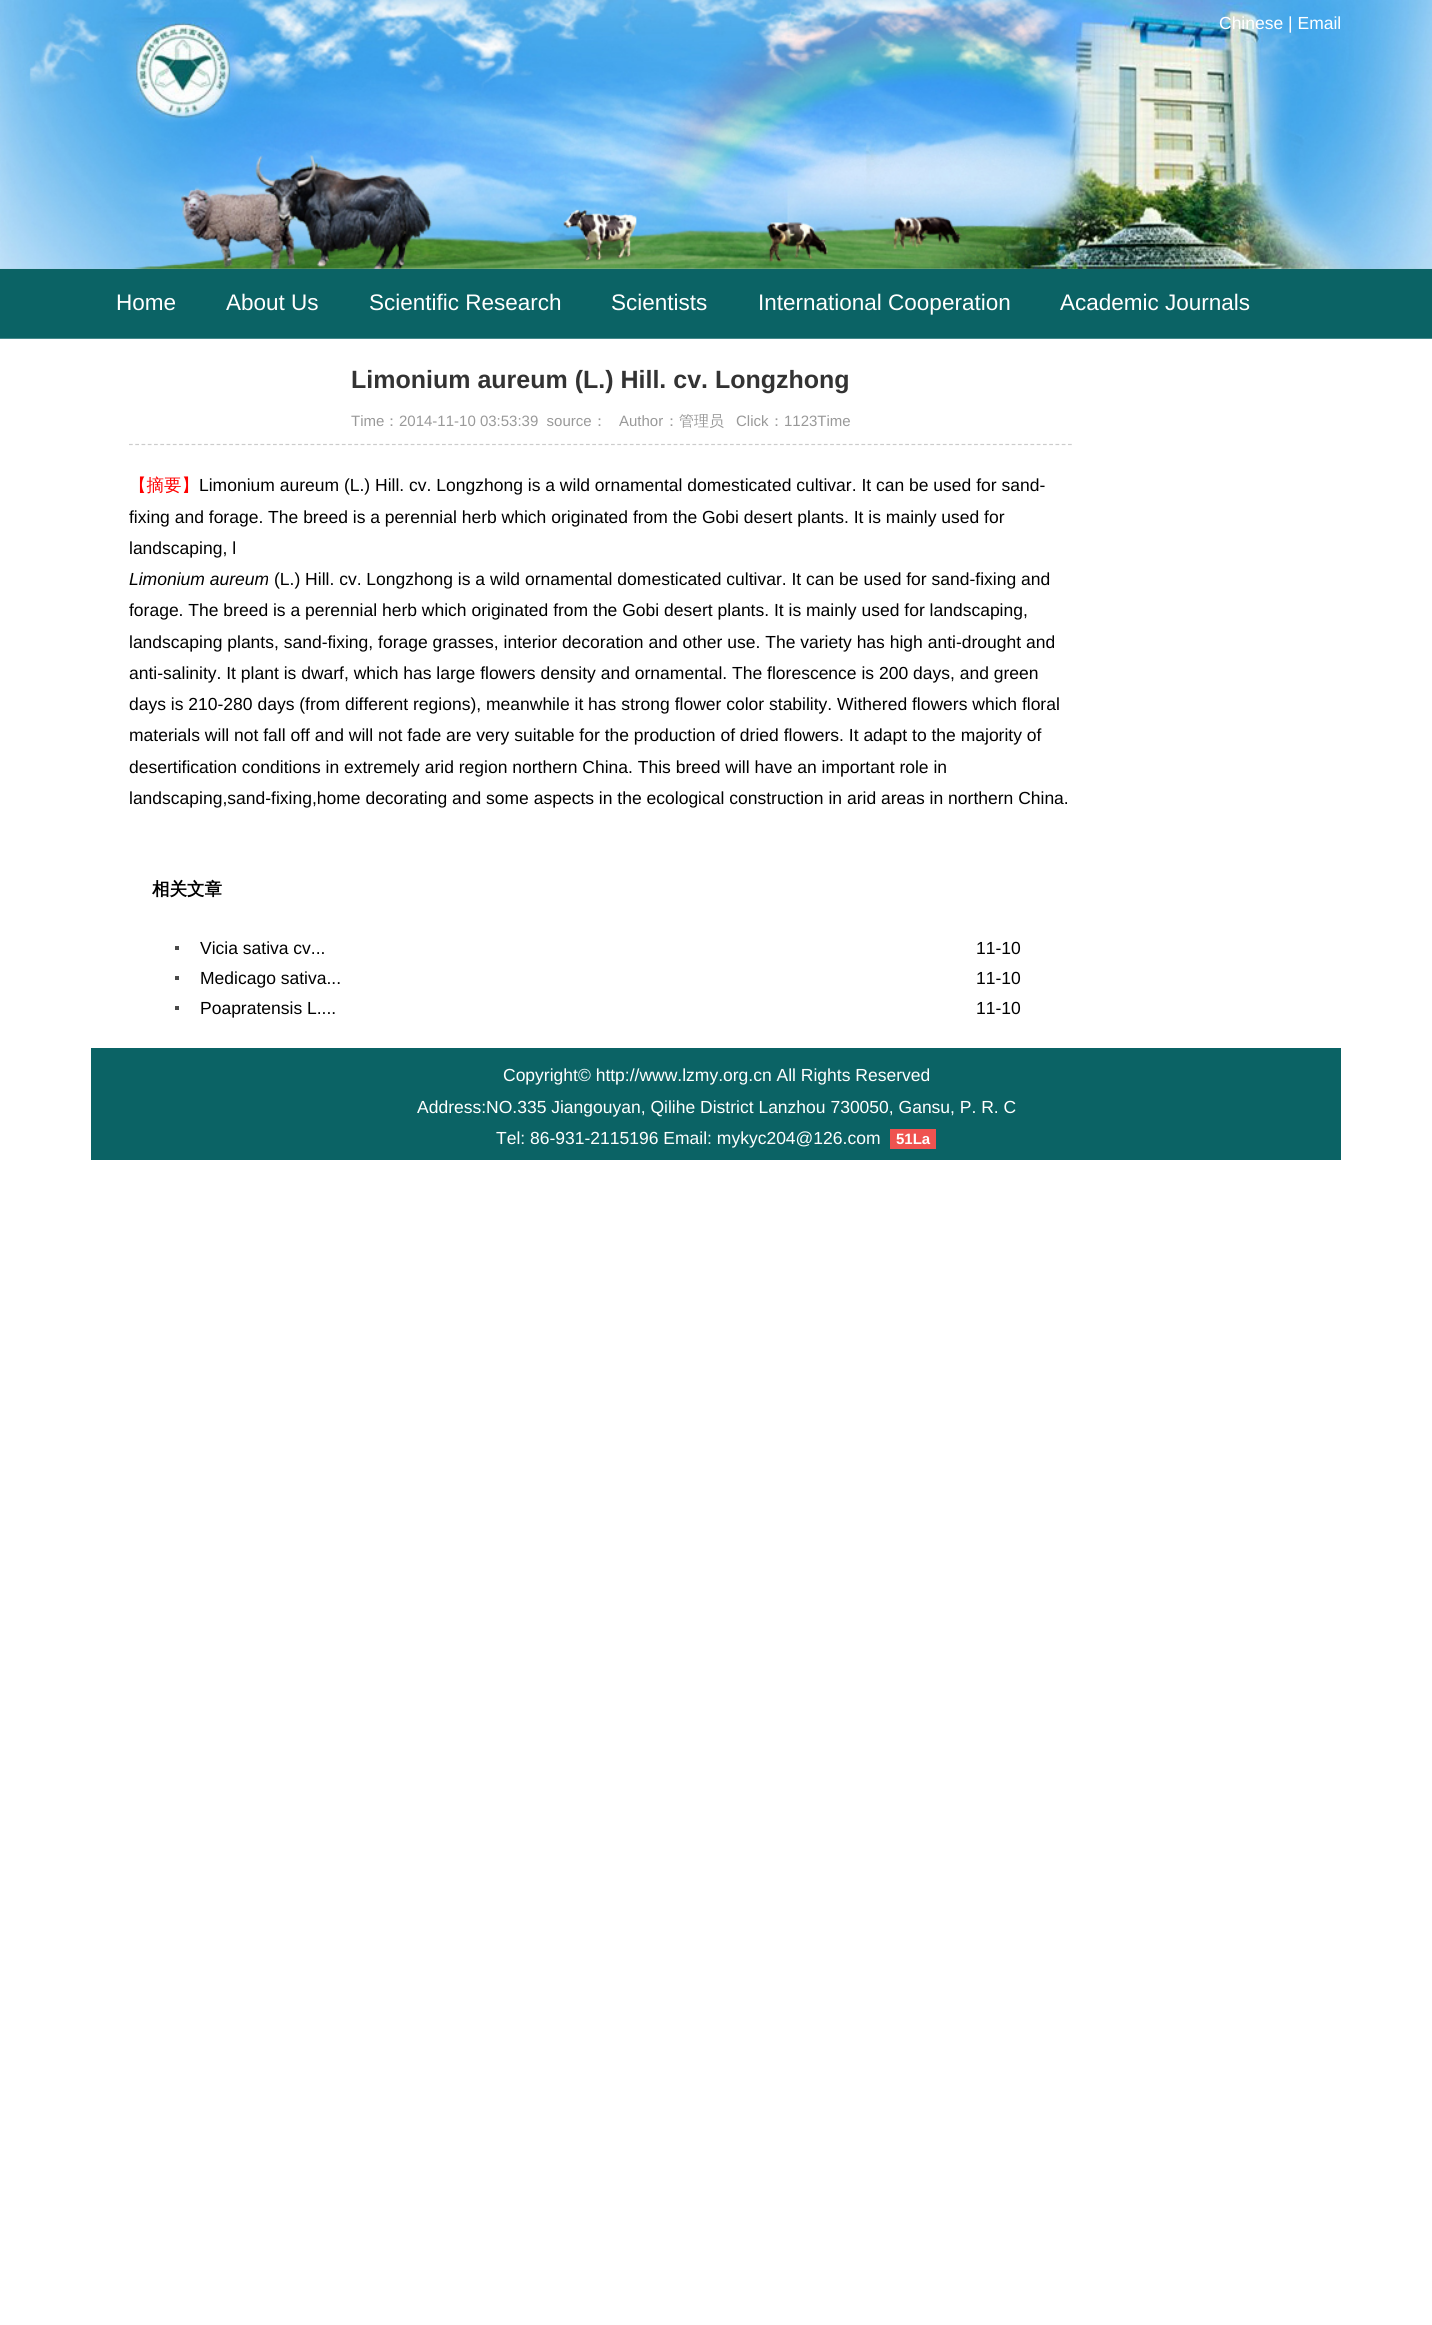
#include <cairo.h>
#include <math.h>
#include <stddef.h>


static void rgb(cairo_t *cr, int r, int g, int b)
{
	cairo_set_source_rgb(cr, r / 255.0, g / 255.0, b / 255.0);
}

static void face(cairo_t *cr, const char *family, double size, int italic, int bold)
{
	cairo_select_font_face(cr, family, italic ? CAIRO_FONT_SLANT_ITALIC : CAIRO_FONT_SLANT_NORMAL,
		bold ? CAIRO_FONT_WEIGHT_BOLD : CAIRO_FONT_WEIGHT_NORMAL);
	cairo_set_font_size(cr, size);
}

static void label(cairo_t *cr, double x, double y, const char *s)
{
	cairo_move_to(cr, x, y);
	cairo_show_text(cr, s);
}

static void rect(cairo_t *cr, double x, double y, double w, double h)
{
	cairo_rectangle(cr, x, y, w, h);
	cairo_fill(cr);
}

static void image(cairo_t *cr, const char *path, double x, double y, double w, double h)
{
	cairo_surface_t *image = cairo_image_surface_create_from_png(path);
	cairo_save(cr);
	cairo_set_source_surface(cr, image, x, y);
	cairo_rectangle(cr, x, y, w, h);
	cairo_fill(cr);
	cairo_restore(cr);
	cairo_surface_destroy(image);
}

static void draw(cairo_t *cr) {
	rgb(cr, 255, 255, 255);
	cairo_paint(cr);
	image(cr, "image0.png", 0, 268, 1432, 71);
	image(cr, "image1.png", 0, 0, 1432, 269);
	face(cr, "Liberation Sans", 17.5, 0, 0);
	rgb(cr, 255, 255, 255);
	label(cr, 1219, 29, "Chinese | Email");
	face(cr, "Liberation Sans", 22.5, 0, 0);
	label(cr, 116, 310, "Home");
	label(cr, 226, 310, "About Us");
	label(cr, 369, 310, "Scientific Research");
	label(cr, 611, 310, "Scientists");
	label(cr, 758, 310, "International Cooperation");
	label(cr, 1060, 310, "Academic Journals");
	face(cr, "Liberation Sans", 25, 0, 1);
	rgb(cr, 51, 51, 51);
	label(cr, 351, 388, "Limonium aureum (L.) Hill. cv. Longzhong");
	cairo_new_path(cr);
	cairo_move_to(cr, 129, 444.5);
	cairo_line_to(cr, 1072.5, 444.5);
	rgb(cr, 204, 204, 204);
	cairo_set_line_width(cr, 1.2);
	cairo_set_dash(cr, (double[]){3.75, 2.51}, 2, 0);
	cairo_stroke(cr);
	face(cr, "Liberation Sans", 15, 0, 0);
	rgb(cr, 153, 153, 153);
	label(cr, 351, 426, "Time");
	face(cr, "WenQuanYi Zen Hei Medium", 15, 0, 0);
	label(cr, 384, 426, "：");
	face(cr, "Liberation Sans", 15, 0, 0);
	label(cr, 399, 426, "2014-11-10 03:53:39  source");
	face(cr, "WenQuanYi Zen Hei Medium", 15, 0, 0);
	label(cr, 592, 426, "：");
	face(cr, "Liberation Sans", 15, 0, 0);
	label(cr, 619, 426, "Author");
	face(cr, "WenQuanYi Zen Hei Medium", 15, 0, 0);
	label(cr, 664, 426, "：管理员");
	face(cr, "Liberation Sans", 15, 0, 0);
	label(cr, 736, 426, "Click");
	face(cr, "WenQuanYi Zen Hei Medium", 15, 0, 0);
	label(cr, 769, 426, "：");
	face(cr, "Liberation Sans", 15, 0, 0);
	label(cr, 784, 426, "1123Time");
	face(cr, "WenQuanYi Zen Hei Medium", 17.5, 0, 0);
	rgb(cr, 255, 0, 0);
	label(cr, 129, 491, "【摘要】");
	face(cr, "Liberation Sans", 17.5, 0, 0);
	rgb(cr, 0, 0, 0);
	label(cr, 199, 491, "Limonium aureum (L.) Hill. cv. Longzhong is a wild ornamental domesticated cultivar. It can be used for sand-");
	label(cr, 129, 523, "fixing and forage. The breed is a perennial herb which originated from the Gobi desert plants. It is mainly used for");
	label(cr, 129, 554, "landscaping, l");
	face(cr, "Liberation Sans", 17.5, 1, 0);
	label(cr, 129, 585, "Limonium aureum");
	face(cr, "Liberation Sans", 17.5, 0, 0);
	label(cr, 274, 585, "(L.) Hill. cv. Longzhong is a wild ornamental domesticated cultivar. It can be used for sand-fixing and");
	label(cr, 129, 616, "forage. The breed is a perennial herb which originated from the Gobi desert plants. It is mainly used for landscaping,");
	label(cr, 129, 648, "landscaping plants, sand-fixing, forage grasses, interior decoration and other use. The variety has high anti-drought and");
	label(cr, 129, 679, "anti-salinity. It plant is dwarf, which has large flowers density and ornamental. The florescence is 200 days, and green");
	label(cr, 129, 710, "days is 210-280 days (from different regions), meanwhile it has strong flower color stability. Withered flowers which floral");
	label(cr, 129, 741, "materials will not fall off and will not fade are very suitable for the production of dried flowers. It adapt to the majority of");
	label(cr, 129, 773, "desertification conditions in extremely arid region northern China. This breed will have an important role in");
	label(cr, 129, 804, "landscaping,sand-fixing,home decorating and some aspects in the ecological construction in arid areas in northern China.");
	face(cr, "WenQuanYi Zen Hei", 17.5, 0, 1);
	label(cr, 152, 895, "相关文章");
	rgb(cr, 74, 74, 74);
	rect(cr, 175, 946, 4, 4);
	face(cr, "Liberation Sans", 17.5, 0, 0);
	rgb(cr, 0, 0, 0);
	label(cr, 200, 954, "Vicia sativa cv...");
	label(cr, 976, 954, "11-10");
	rgb(cr, 74, 74, 74);
	rect(cr, 175, 976, 4, 4);
	rgb(cr, 0, 0, 0);
	label(cr, 200, 984, "Medicago sativa...");
	label(cr, 976, 984, "11-10");
	rgb(cr, 74, 74, 74);
	rect(cr, 175, 1006, 4, 4);
	rgb(cr, 0, 0, 0);
	label(cr, 200, 1014, "Poapratensis L....");
	label(cr, 976, 1014, "11-10");
	rgb(cr, 11, 99, 101);
	rect(cr, 91, 1048, 1250, 112);
	rgb(cr, 255, 255, 255);
	label(cr, 503, 1081, "Copyright© http://www.lzmy.org.cn All Rights Reserved");
	label(cr, 417, 1113, "Address:NO.335 Jiangouyan, Qilihe District Lanzhou 730050, Gansu, P. R. C");
	label(cr, 496, 1144, "Tel: 86-931-2115196 Email: mykyc204@126.com");
	rgb(cr, 239, 83, 80);
	rect(cr, 890, 1129, 46, 20);
	face(cr, "Liberation Sans", 15, 0, 1);
	rgb(cr, 255, 255, 255);
	label(cr, 896, 1144, "51La");
}

int main(void) {
	cairo_surface_t *surface = cairo_image_surface_create(CAIRO_FORMAT_RGB24, 1432, 2325);
	cairo_t *cr = cairo_create(surface);
	cairo_font_options_t *options = cairo_font_options_create();
	cairo_font_options_set_hint_metrics(options, CAIRO_HINT_METRICS_OFF);
	cairo_font_options_set_hint_style(options, CAIRO_HINT_STYLE_NONE);
	cairo_set_font_options(cr, options);
	cairo_set_miter_limit(cr, 4);
	draw(cr);
	cairo_surface_write_to_png(surface, "render.png");
	cairo_font_options_destroy(options);
	cairo_destroy(cr);
	cairo_surface_destroy(surface);
	return 0;
}
